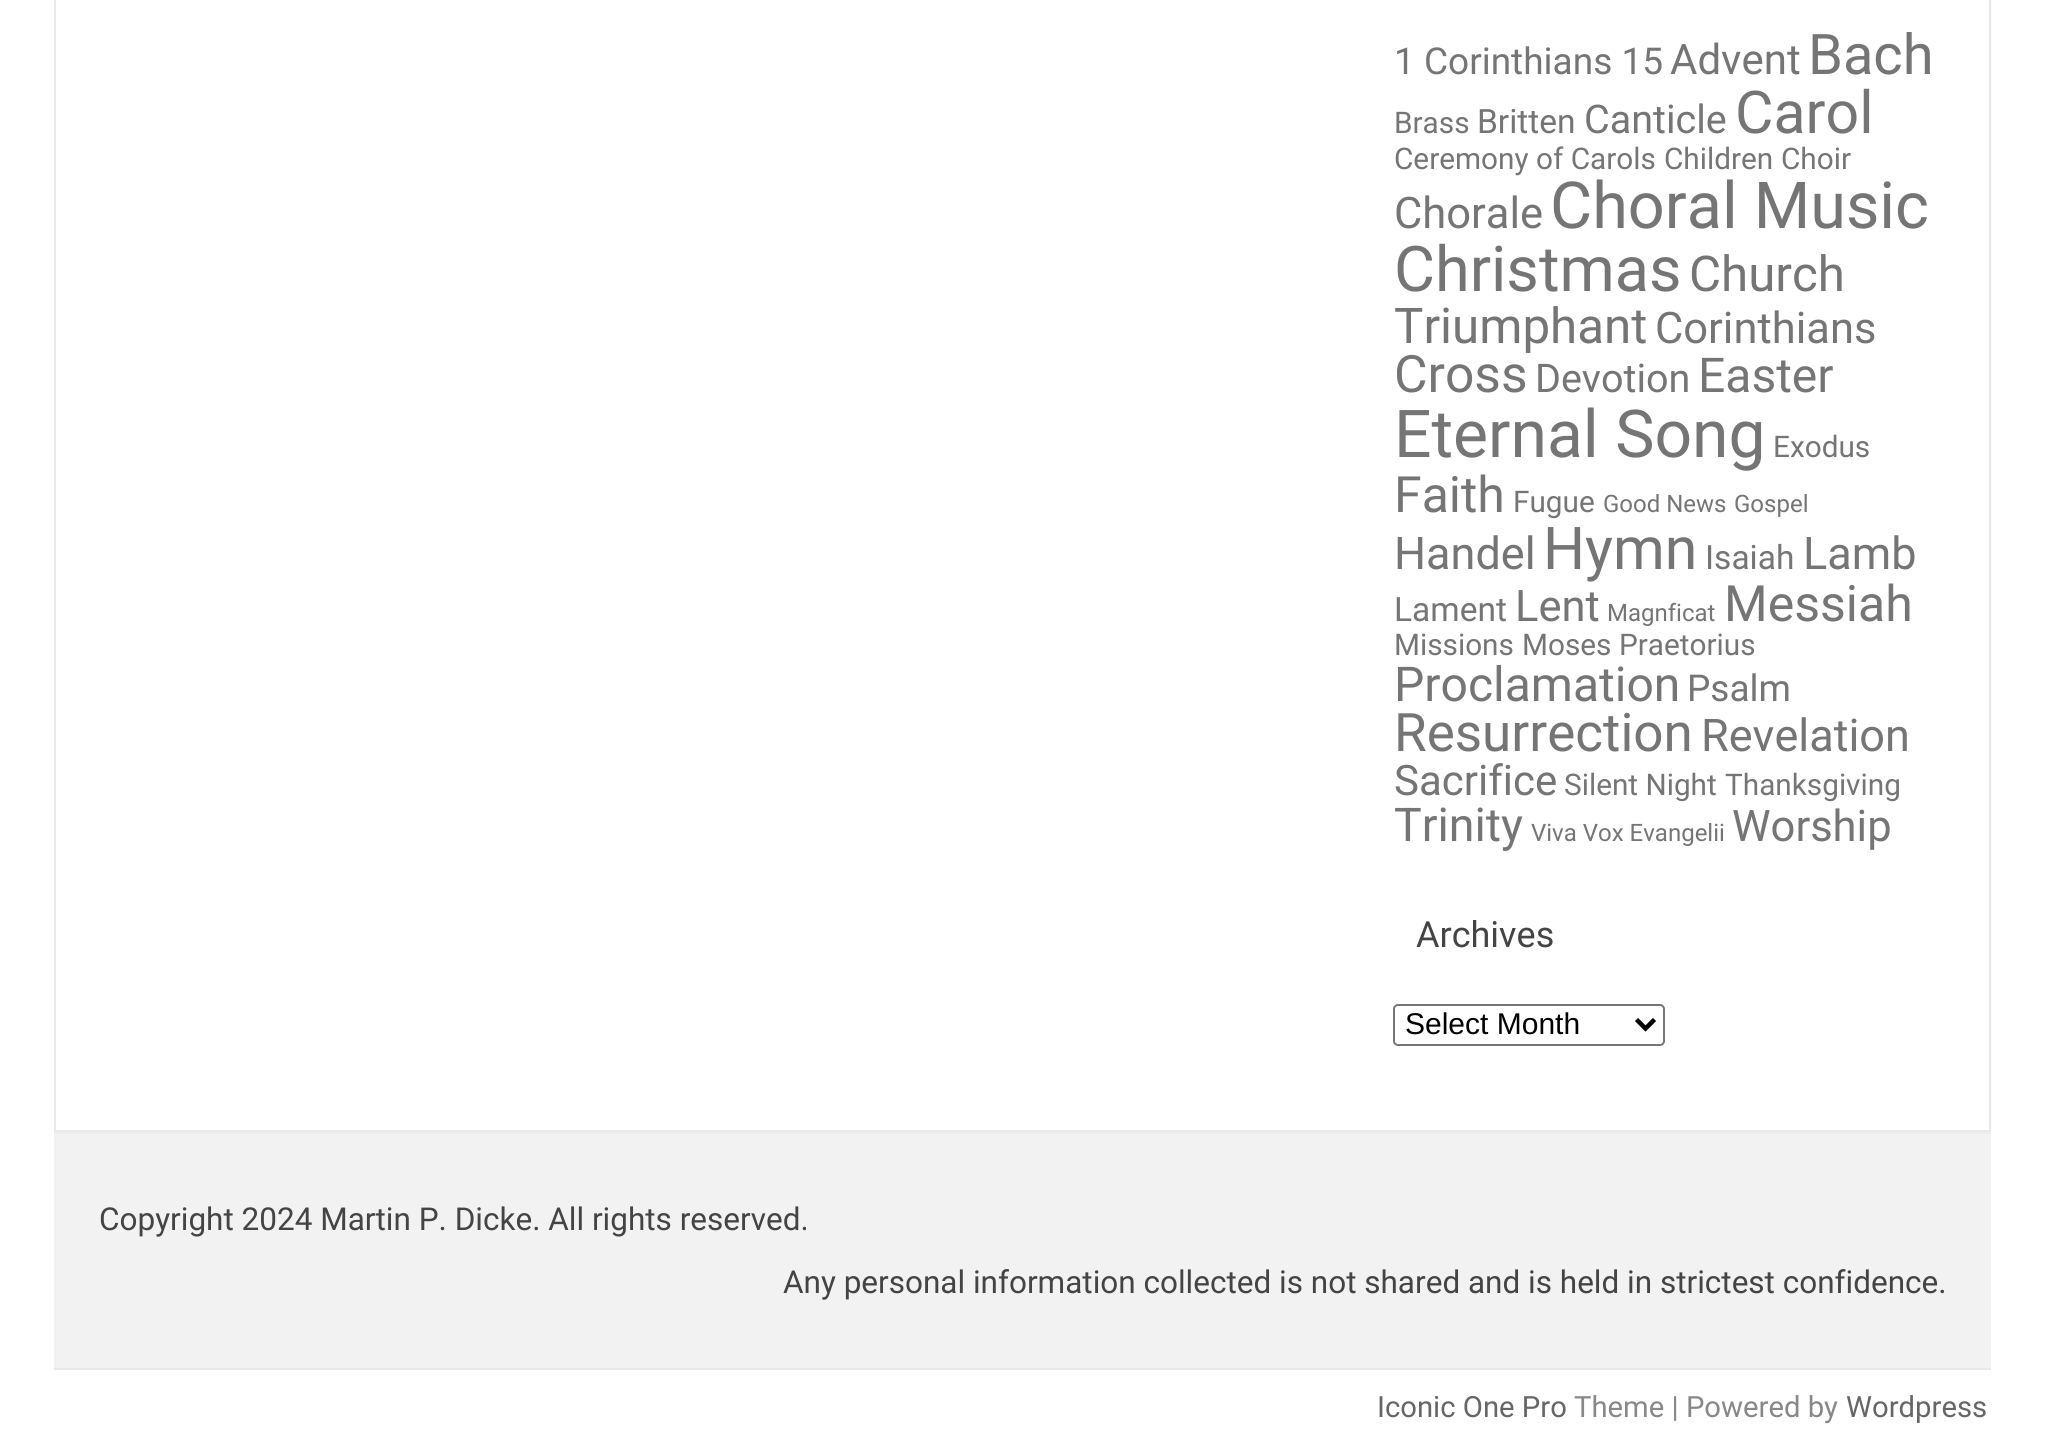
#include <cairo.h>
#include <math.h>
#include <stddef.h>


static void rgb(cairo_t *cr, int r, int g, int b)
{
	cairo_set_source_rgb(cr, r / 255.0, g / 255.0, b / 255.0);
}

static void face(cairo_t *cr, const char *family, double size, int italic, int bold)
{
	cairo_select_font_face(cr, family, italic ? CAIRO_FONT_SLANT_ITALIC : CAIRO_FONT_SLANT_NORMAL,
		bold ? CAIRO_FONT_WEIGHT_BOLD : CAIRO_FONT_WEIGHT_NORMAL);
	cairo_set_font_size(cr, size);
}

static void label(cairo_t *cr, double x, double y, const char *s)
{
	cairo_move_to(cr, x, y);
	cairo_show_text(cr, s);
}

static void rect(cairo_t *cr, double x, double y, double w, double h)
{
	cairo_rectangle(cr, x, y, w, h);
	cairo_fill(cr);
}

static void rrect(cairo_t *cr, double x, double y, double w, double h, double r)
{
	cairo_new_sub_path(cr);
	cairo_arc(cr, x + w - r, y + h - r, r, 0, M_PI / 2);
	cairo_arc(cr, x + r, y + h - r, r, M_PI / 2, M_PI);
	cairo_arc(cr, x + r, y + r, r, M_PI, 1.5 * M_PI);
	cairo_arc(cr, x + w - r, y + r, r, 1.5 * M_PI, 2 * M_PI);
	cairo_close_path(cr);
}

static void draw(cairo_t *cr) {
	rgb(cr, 255, 255, 255);
	cairo_paint(cr);
	cairo_rectangle(cr, 55, -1, 1935, 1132);
	rgb(cr, 233, 233, 233);
	cairo_stroke(cr);
	face(cr, "Roboto", 37, 0, 0);
	rgb(cr, 117, 117, 117);
	label(cr, 1394, 74, "1 Corinthians 15");
	face(cr, "Roboto", 42, 0, 0);
	label(cr, 1670, 74, "Advent");
	face(cr, "Roboto", 56, 0, 0);
	label(cr, 1808, 74, "Bach");
	face(cr, "Roboto", 29.75, 0, 0);
	label(cr, 1394, 133, "Brass");
	face(cr, "Roboto", 33.5, 0, 0);
	label(cr, 1477, 133, "Britten");
	face(cr, "Roboto", 39.5, 0, 0);
	label(cr, 1584, 133, "Canticle");
	face(cr, "Roboto", 59, 0, 0);
	label(cr, 1735, 133, "Carol");
	face(cr, "Roboto", 29.75, 0, 0);
	label(cr, 1394, 169, "Ceremony of Carols");
	label(cr, 1664, 169, "Children");
	label(cr, 1781, 169, "Choir");
	face(cr, "Roboto", 43.5, 0, 0);
	label(cr, 1394, 228, "Chorale");
	face(cr, "Roboto", 64.75, 0, 0);
	label(cr, 1550, 228, "Choral Music");
	face(cr, "Roboto", 63, 0, 0);
	label(cr, 1394, 291, "Christmas");
	face(cr, "Roboto", 49.25, 0, 0);
	label(cr, 1689, 291, "Church");
	label(cr, 1394, 343, "Triumphant");
	face(cr, "Roboto", 43.5, 0, 0);
	label(cr, 1655, 343, "Corinthians");
	face(cr, "Roboto", 51.5, 0, 0);
	label(cr, 1394, 392, "Cross");
	face(cr, "Roboto", 39.5, 0, 0);
	label(cr, 1535, 392, "Devotion");
	face(cr, "Roboto", 48, 0, 0);
	label(cr, 1698, 392, "Easter");
	face(cr, "Roboto", 66, 0, 0);
	label(cr, 1394, 457, "Eternal Song");
	face(cr, "Roboto", 29.75, 0, 0);
	label(cr, 1773, 457, "Exodus");
	face(cr, "Roboto", 50, 0, 0);
	label(cr, 1394, 512, "Faith");
	face(cr, "Roboto", 29.75, 0, 0);
	label(cr, 1513, 512, "Fugue");
	face(cr, "Roboto", 24, 0, 0);
	label(cr, 1603, 512, "Good News");
	label(cr, 1734, 512, "Gospel");
	face(cr, "Roboto", 45, 0, 0);
	label(cr, 1394, 569, "Handel");
	face(cr, "Roboto", 59, 0, 0);
	label(cr, 1543, 569, "Hymn");
	face(cr, "Roboto", 33.5, 0, 0);
	label(cr, 1705, 569, "Isaiah");
	face(cr, "Roboto", 45, 0, 0);
	label(cr, 1803, 569, "Lamb");
	face(cr, "Roboto", 33.5, 0, 0);
	label(cr, 1394, 621, "Lament");
	face(cr, "Roboto", 43.5, 0, 0);
	label(cr, 1515, 621, "Lent");
	face(cr, "Roboto", 24, 0, 0);
	label(cr, 1607, 621, "Magnficat");
	face(cr, "Roboto", 50, 0, 0);
	label(cr, 1724, 621, "Messiah");
	face(cr, "Roboto", 29.75, 0, 0);
	label(cr, 1394, 655, "Missions");
	label(cr, 1522, 655, "Moses");
	label(cr, 1619, 655, "Praetorius");
	face(cr, "Roboto", 48, 0, 0);
	label(cr, 1394, 701, "Proclamation");
	face(cr, "Roboto", 37, 0, 0);
	label(cr, 1687, 701, "Psalm");
	face(cr, "Roboto", 53, 0, 0);
	label(cr, 1394, 751, "Resurrection");
	face(cr, "Roboto", 45, 0, 0);
	label(cr, 1701, 751, "Revelation");
	face(cr, "Roboto", 42, 0, 0);
	label(cr, 1394, 795, "Sacrifice");
	face(cr, "Roboto", 29.75, 0, 0);
	label(cr, 1564, 795, "Silent Night");
	label(cr, 1725, 795, "Thanksgiving");
	face(cr, "Roboto", 46.5, 0, 0);
	label(cr, 1394, 841, "Trinity");
	face(cr, "Roboto", 24, 0, 0);
	label(cr, 1531, 841, "Viva Vox Evangelii");
	face(cr, "Roboto", 43.5, 0, 0);
	label(cr, 1732, 841, "Worship");
	face(cr, "Roboto", 36, 0, 0);
	rgb(cr, 68, 68, 68);
	label(cr, 1416, 947, "Archives");
	rrect(cr, 1394, 1005, 270, 40, 4);
	rgb(cr, 118, 118, 118);
	cairo_stroke(cr);
	cairo_new_path(cr);
	cairo_move_to(cr, 1636.5, 1019.5);
	cairo_line_to(cr, 1645.5, 1028.5);
	cairo_line_to(cr, 1654.5, 1019.5);
	rgb(cr, 0, 0, 0);
	cairo_set_line_width(cr, 4.5);
	cairo_stroke(cr);
	face(cr, "Liberation Sans", 30, 0, 0);
	label(cr, 1405, 1034, "Select Month");
	rgb(cr, 242, 242, 242);
	rect(cr, 54, 1134, 1937, 234);
	rgb(cr, 237, 237, 237);
	rect(cr, 54, 1132, 1937, 2);
	rgb(cr, 233, 233, 233);
	rect(cr, 54, 1368, 1937, 2);
	face(cr, "Roboto", 31.5, 0, 0);
	rgb(cr, 68, 68, 68);
	label(cr, 99, 1230, "Copyright 2024 Martin P. Dicke. All rights reserved.");
	label(cr, 783, 1293, "Any personal information collected is not shared and is held in strictest confidence.");
	face(cr, "Roboto", 29.25, 0, 0);
	rgb(cr, 102, 102, 102);
	label(cr, 1377, 1417, "Iconic One Pro");
	rgb(cr, 136, 136, 136);
	label(cr, 1574, 1417, "Theme | Powered by");
	rgb(cr, 102, 102, 102);
	label(cr, 1846, 1417, "Wordpress");
}

int main(void) {
	cairo_surface_t *surface = cairo_image_surface_create(CAIRO_FORMAT_RGB24, 2045, 1443);
	cairo_t *cr = cairo_create(surface);
	cairo_font_options_t *options = cairo_font_options_create();
	cairo_font_options_set_hint_metrics(options, CAIRO_HINT_METRICS_OFF);
	cairo_font_options_set_hint_style(options, CAIRO_HINT_STYLE_NONE);
	cairo_set_font_options(cr, options);
	cairo_set_miter_limit(cr, 4);
	draw(cr);
	cairo_surface_write_to_png(surface, "render.png");
	cairo_font_options_destroy(options);
	cairo_destroy(cr);
	cairo_surface_destroy(surface);
	return 0;
}
